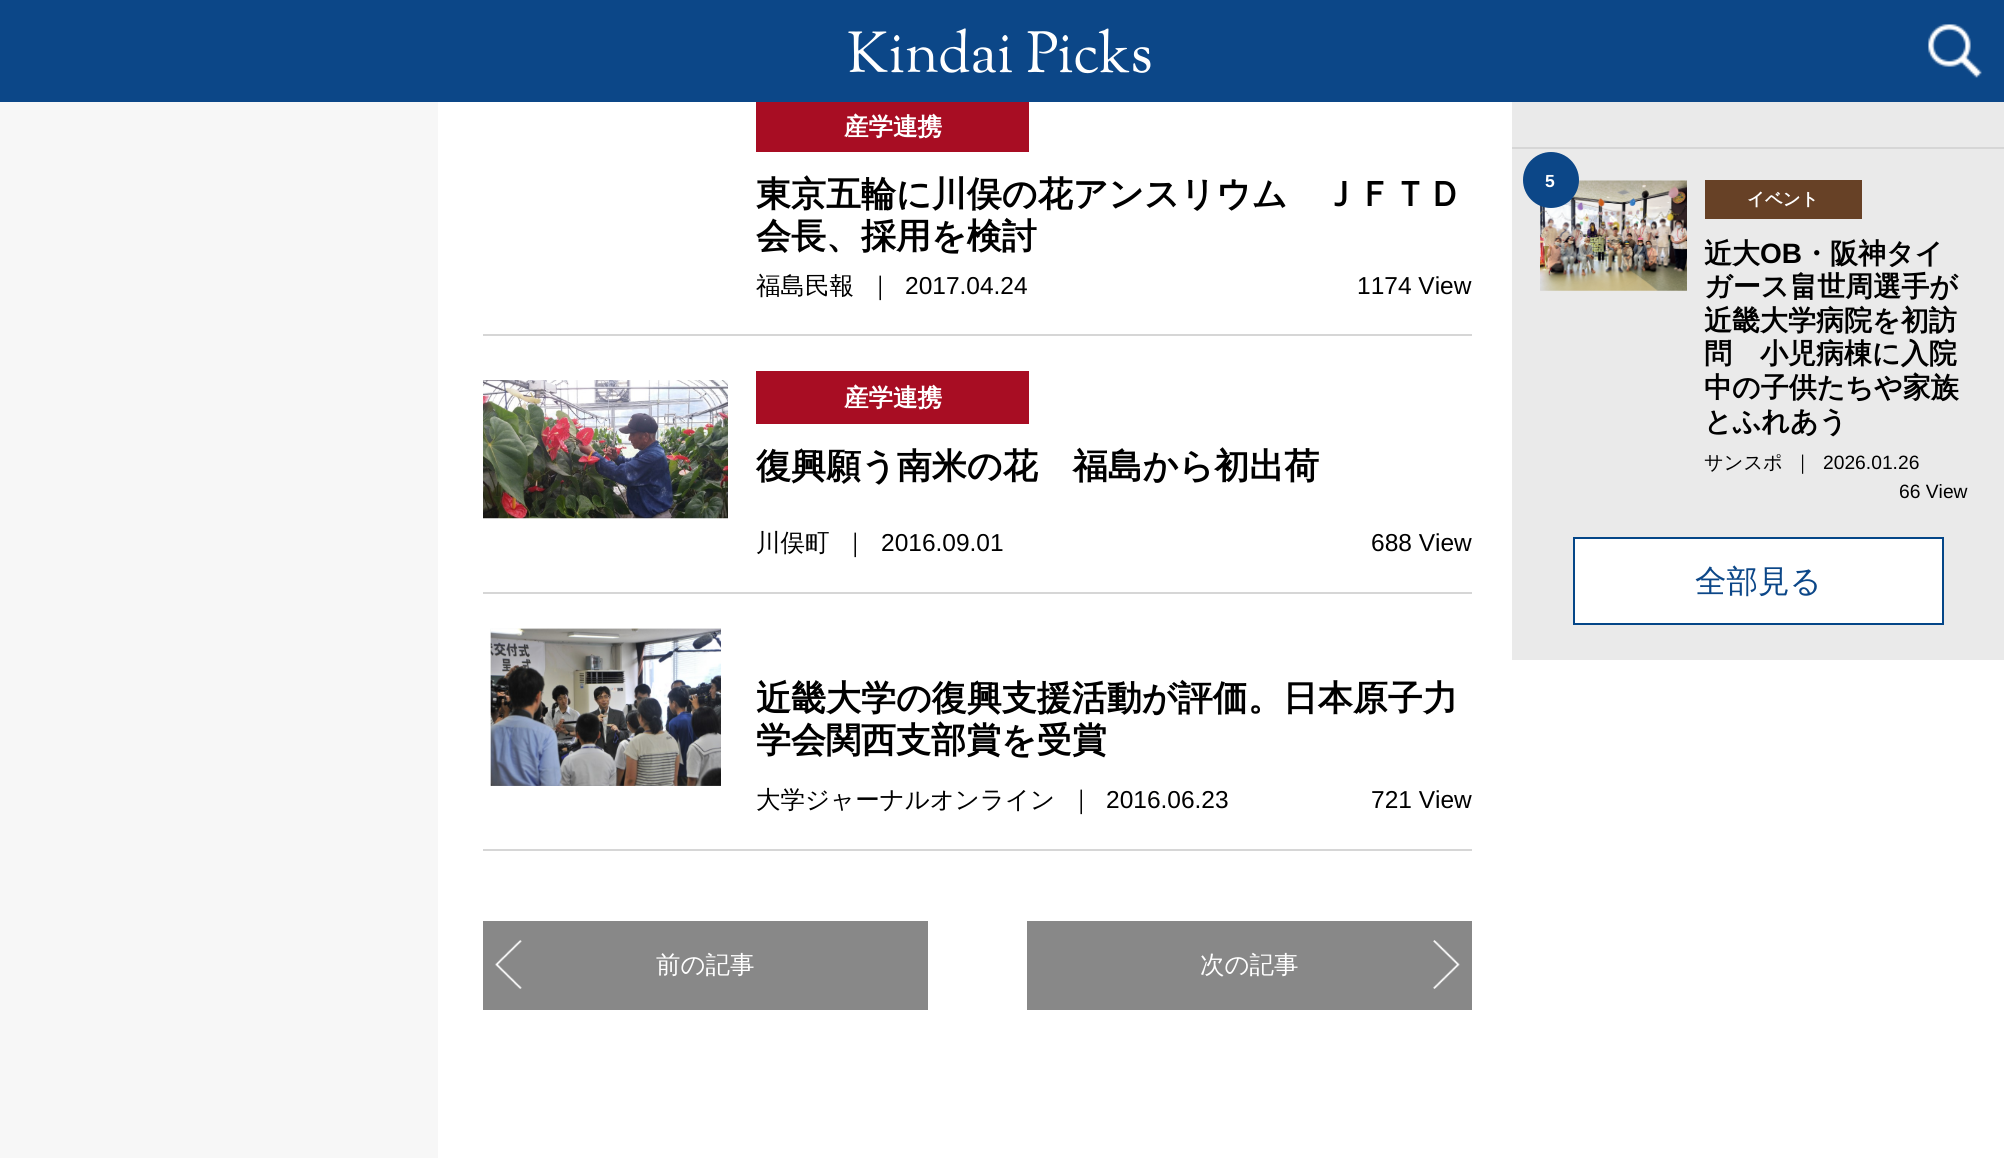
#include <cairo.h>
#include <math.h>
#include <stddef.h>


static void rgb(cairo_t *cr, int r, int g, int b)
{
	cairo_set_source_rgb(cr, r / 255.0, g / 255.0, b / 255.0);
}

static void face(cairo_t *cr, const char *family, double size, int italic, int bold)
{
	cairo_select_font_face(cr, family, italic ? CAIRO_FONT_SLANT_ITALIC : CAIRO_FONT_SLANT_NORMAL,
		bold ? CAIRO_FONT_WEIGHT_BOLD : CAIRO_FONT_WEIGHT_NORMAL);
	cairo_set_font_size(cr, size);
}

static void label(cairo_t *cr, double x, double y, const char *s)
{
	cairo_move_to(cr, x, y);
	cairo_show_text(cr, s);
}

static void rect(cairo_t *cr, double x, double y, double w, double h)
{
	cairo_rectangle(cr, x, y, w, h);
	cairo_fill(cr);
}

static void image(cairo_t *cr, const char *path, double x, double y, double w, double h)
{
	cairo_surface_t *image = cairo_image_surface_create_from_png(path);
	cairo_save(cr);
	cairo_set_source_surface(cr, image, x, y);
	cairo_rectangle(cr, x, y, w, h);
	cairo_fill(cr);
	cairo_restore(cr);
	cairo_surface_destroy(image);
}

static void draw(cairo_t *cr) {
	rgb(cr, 255, 255, 255);
	cairo_paint(cr);
	rgb(cr, 12, 71, 136);
	rect(cr, 0, 0, 2004, 102);
	image(cr, "image0.png", 848, 28, 303, 46);
	image(cr, "image1.png", 1928, 24, 54, 54);
	rgb(cr, 247, 247, 247);
	rect(cr, 0, 102, 438, 1056);
	rgb(cr, 214, 214, 214);
	rect(cr, 483, 334, 989, 2);
	rgb(cr, 168, 13, 35);
	rect(cr, 756, 102, 273, 50);
	face(cr, "WenQuanYi Zen Hei", 24.5, 0, 1);
	rgb(cr, 255, 255, 255);
	label(cr, 844, 135, "産学連携");
	face(cr, "WenQuanYi Zen Hei", 35, 0, 1);
	rgb(cr, 0, 0, 0);
	label(cr, 756, 206, "東京五輪に川俣の花アンスリウム　ＪＦＴＤ");
	label(cr, 756, 248, "会長、採用を検討");
	face(cr, "WenQuanYi Zen Hei Medium", 24.5, 0, 0);
	label(cr, 756, 294, "福島民報");
	label(cr, 868, 294, "｜");
	face(cr, "Liberation Sans", 24.5, 0, 0);
	label(cr, 905, 294, "2017.04.24");
	label(cr, 1357, 294, "1174 View");
	rgb(cr, 214, 214, 214);
	rect(cr, 483, 592, 989, 2);
	image(cr, "image2.png", 483, 380, 245, 139);
	rgb(cr, 168, 13, 35);
	rect(cr, 756, 371, 273, 53);
	face(cr, "WenQuanYi Zen Hei", 24.5, 0, 1);
	rgb(cr, 255, 255, 255);
	label(cr, 844, 406, "産学連携");
	face(cr, "WenQuanYi Zen Hei", 35, 0, 1);
	rgb(cr, 0, 0, 0);
	label(cr, 756, 478, "復興願う南米の花　福島から初出荷");
	face(cr, "WenQuanYi Zen Hei Medium", 24.5, 0, 0);
	label(cr, 756, 551, "川俣町");
	label(cr, 843, 551, "｜");
	face(cr, "Liberation Sans", 24.5, 0, 0);
	label(cr, 881, 551, "2016.09.01");
	label(cr, 1371, 551, "688 View");
	rgb(cr, 214, 214, 214);
	rect(cr, 483, 849, 989, 2);
	image(cr, "image3.png", 490, 628, 231, 158);
	face(cr, "WenQuanYi Zen Hei", 35, 0, 1);
	rgb(cr, 0, 0, 0);
	label(cr, 756, 710, "近畿大学の復興支援活動が評価。日本原子力");
	label(cr, 756, 752, "学会関西支部賞を受賞");
	face(cr, "WenQuanYi Zen Hei Medium", 24.5, 0, 0);
	label(cr, 756, 808, "大学ジャーナルオンライン");
	label(cr, 1069, 808, "｜");
	face(cr, "Liberation Sans", 24.5, 0, 0);
	label(cr, 1106, 808, "2016.06.23");
	label(cr, 1371, 808, "721 View");
	rgb(cr, 136, 136, 136);
	rect(cr, 483, 921, 445, 89);
	image(cr, "image4.png", 495, 940, 27, 49);
	face(cr, "WenQuanYi Zen Hei Medium", 24.5, 0, 0);
	rgb(cr, 255, 255, 255);
	label(cr, 656, 973, "前の記事");
	rgb(cr, 136, 136, 136);
	rect(cr, 1027, 921, 445, 89);
	image(cr, "image5.png", 1433, 940, 27, 49);
	rgb(cr, 255, 255, 255);
	label(cr, 1200, 973, "次の記事");
	rgb(cr, 234, 234, 234);
	rect(cr, 1512, 102, 492, 558);
	rgb(cr, 214, 214, 214);
	rect(cr, 1512, 147, 492, 2);
	image(cr, "image6.png", 1540, 180, 147, 111);
	rgb(cr, 12, 71, 136);
	cairo_arc(cr, 1551, 180, 28, 0, 2 * M_PI);
	cairo_fill(cr);
	face(cr, "Liberation Sans", 17.5, 0, 1);
	rgb(cr, 255, 255, 255);
	label(cr, 1545, 187, "5");
	rgb(cr, 103, 65, 38);
	rect(cr, 1705, 180, 157, 39);
	face(cr, "WenQuanYi Zen Hei", 17.5, 0, 1);
	rgb(cr, 255, 255, 255);
	label(cr, 1747, 205, "イベント");
	face(cr, "WenQuanYi Zen Hei", 28, 0, 1);
	rgb(cr, 0, 0, 0);
	label(cr, 1704, 263, "近大");
	face(cr, "Liberation Sans", 28, 0, 1);
	label(cr, 1760, 263, "OB");
	face(cr, "WenQuanYi Zen Hei", 28, 0, 1);
	label(cr, 1802, 263, "・阪神タイ");
	label(cr, 1704, 296, "ガース畠世周選手が");
	label(cr, 1704, 330, "近畿大学病院を初訪");
	label(cr, 1704, 363, "問　小児病棟に入院");
	label(cr, 1704, 397, "中の子供たちや家族");
	label(cr, 1704, 431, "とふれあう");
	face(cr, "WenQuanYi Zen Hei Medium", 19.25, 0, 0);
	label(cr, 1704, 469, "サンスポ");
	label(cr, 1793, 469, "｜");
	face(cr, "Liberation Sans", 19.25, 0, 0);
	label(cr, 1823, 469, "2026.01.26");
	label(cr, 1899, 498, "66 View");
	rgb(cr, 255, 255, 255);
	cairo_rectangle(cr, 1574, 538, 369, 86);
	cairo_fill_preserve(cr);
	rgb(cr, 4, 70, 136);
	cairo_stroke(cr);
	face(cr, "WenQuanYi Zen Hei Medium", 31.5, 0, 0);
	rgb(cr, 12, 71, 136);
	label(cr, 1695, 592, "全部見る");
}

int main(void) {
	cairo_surface_t *surface = cairo_image_surface_create(CAIRO_FORMAT_RGB24, 2004, 1158);
	cairo_t *cr = cairo_create(surface);
	cairo_font_options_t *options = cairo_font_options_create();
	cairo_font_options_set_hint_metrics(options, CAIRO_HINT_METRICS_OFF);
	cairo_font_options_set_hint_style(options, CAIRO_HINT_STYLE_NONE);
	cairo_set_font_options(cr, options);
	cairo_set_miter_limit(cr, 4);
	draw(cr);
	cairo_surface_write_to_png(surface, "render.png");
	cairo_font_options_destroy(options);
	cairo_destroy(cr);
	cairo_surface_destroy(surface);
	return 0;
}
